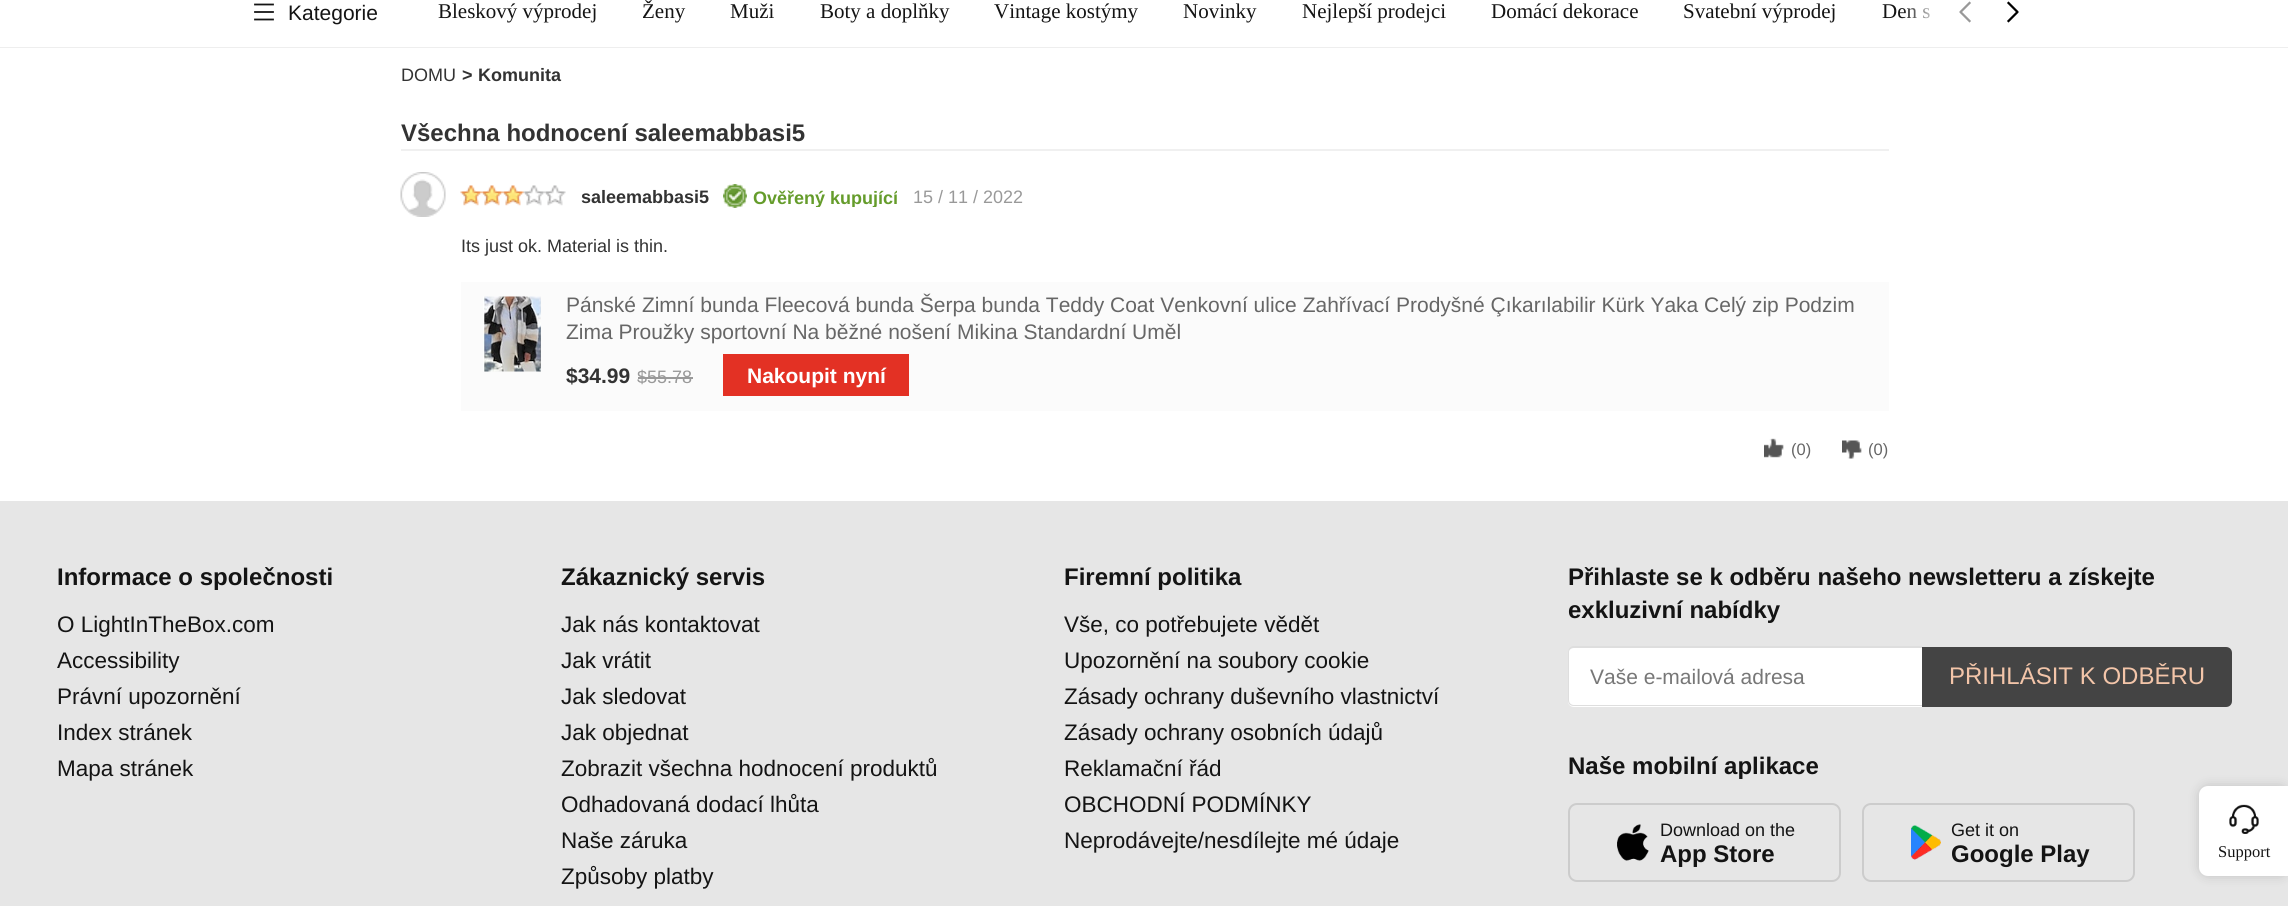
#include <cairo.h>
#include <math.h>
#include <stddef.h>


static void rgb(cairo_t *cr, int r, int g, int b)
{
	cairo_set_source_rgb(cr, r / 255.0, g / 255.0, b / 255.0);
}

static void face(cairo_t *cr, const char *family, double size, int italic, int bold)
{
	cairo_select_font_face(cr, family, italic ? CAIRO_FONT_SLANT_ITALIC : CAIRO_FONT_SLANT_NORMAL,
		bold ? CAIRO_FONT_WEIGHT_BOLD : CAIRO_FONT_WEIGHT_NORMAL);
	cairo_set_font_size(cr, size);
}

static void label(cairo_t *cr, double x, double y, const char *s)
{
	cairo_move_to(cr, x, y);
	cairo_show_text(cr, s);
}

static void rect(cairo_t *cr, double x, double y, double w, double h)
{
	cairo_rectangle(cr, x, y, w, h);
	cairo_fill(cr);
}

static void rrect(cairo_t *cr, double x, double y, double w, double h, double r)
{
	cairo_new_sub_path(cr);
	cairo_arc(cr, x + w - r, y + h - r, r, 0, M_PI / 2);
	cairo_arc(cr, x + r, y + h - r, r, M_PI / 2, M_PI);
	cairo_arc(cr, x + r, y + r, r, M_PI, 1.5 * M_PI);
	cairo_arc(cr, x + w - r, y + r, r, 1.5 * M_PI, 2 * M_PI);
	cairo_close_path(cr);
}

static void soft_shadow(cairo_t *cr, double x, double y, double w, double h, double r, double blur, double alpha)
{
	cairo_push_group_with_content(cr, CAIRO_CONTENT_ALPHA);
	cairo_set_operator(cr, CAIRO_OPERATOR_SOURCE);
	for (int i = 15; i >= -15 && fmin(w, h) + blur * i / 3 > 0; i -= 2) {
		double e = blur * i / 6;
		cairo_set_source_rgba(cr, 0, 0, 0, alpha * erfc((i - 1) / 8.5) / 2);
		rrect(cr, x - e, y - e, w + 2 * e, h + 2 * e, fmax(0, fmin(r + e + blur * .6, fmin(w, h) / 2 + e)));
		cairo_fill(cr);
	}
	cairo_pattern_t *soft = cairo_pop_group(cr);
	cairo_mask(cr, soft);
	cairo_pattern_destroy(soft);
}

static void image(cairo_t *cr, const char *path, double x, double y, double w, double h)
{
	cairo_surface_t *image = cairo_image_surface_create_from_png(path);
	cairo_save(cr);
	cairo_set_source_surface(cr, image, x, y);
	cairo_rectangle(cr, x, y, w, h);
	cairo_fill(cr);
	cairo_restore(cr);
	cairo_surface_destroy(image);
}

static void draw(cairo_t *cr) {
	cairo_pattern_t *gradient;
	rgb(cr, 255, 255, 255);
	cairo_paint(cr);
	rgb(cr, 238, 238, 238);
	rect(cr, 0, 47, 2288, 1);
	image(cr, "image0.png", 254, 3, 20, 18);
	face(cr, "Liberation Sans", 21, 0, 0);
	rgb(cr, 20, 20, 20);
	label(cr, 288, 20, "Kategorie");
	face(cr, "Liberation Serif", 21, 0, 0);
	label(cr, 438, 18, "Bleskový výprodej");
	label(cr, 642, 18, "Ženy");
	label(cr, 730, 18, "Muži");
	label(cr, 820, 18, "Boty a doplňky");
	label(cr, 994, 18, "Vintage kostýmy");
	label(cr, 1183, 18, "Novinky");
	label(cr, 1302, 18, "Nejlepší prodejci");
	label(cr, 1491, 18, "Domácí dekorace");
	label(cr, 1683, 18, "Svatební výprodej");
	label(cr, 1882, 18, "Den s");
	gradient = cairo_pattern_create_linear(1941, 15, 1902, 15);
	cairo_pattern_add_color_stop_rgba(gradient, 0, 1, 1, 1, 1);
	cairo_pattern_add_color_stop_rgba(gradient, 1, 1, 1, 1, 0);
	cairo_set_source(cr, gradient);
	cairo_pattern_destroy(gradient);
	rect(cr, 1903, 8, 27, 11);
	image(cr, "image1.png", 1959, 1, 12, 22);
	image(cr, "image2.png", 2007, 1, 12, 22);
	face(cr, "Liberation Sans", 18, 0, 0);
	rgb(cr, 51, 51, 51);
	label(cr, 401, 81, "DOMU");
	face(cr, "Liberation Sans", 18, 0, 1);
	label(cr, 462, 81, ">");
	label(cr, 478, 81, "Komunita");
	face(cr, "Liberation Sans", 24, 0, 1);
	label(cr, 401, 141, "Všechna hodnocení saleemabbasi5");
	rgb(cr, 240, 240, 240);
	rect(cr, 401, 149, 1488, 2);
	image(cr, "image3.png", 400, 172, 46, 45);
	image(cr, "image4.png", 460, 185, 106, 21);
	face(cr, "Liberation Sans", 18, 0, 1);
	rgb(cr, 51, 51, 51);
	label(cr, 581, 203, "saleemabbasi5");
	image(cr, "image5.png", 723, 184, 24, 24);
	cairo_save(cr);
	cairo_rectangle(cr, 753, 183, 144, 24);
	cairo_clip(cr);
	rgb(cr, 101, 156, 43);
	label(cr, 753, 204, "Ověřený kupující");
	cairo_restore(cr);
	face(cr, "Liberation Sans", 18, 0, 0);
	rgb(cr, 153, 153, 153);
	label(cr, 913, 203, "15 / 11 / 2022");
	rgb(cr, 51, 51, 51);
	label(cr, 461, 252, "Its just ok. Material is thin.");
	rgb(cr, 251, 251, 251);
	rect(cr, 461, 282, 1428, 129);
	image(cr, "image6.png", 483, 296, 58, 76);
	face(cr, "Liberation Sans", 21, 0, 0);
	rgb(cr, 102, 102, 102);
	label(cr, 566, 312, "Pánské Zimní bunda Fleecová bunda Šerpa bunda Teddy Coat Venkovní ulice Zahřívací Prodyšné Çıkarılabilir Kürk Yaka Celý zip Podzim");
	label(cr, 566, 339, "Zima Proužky sportovní Na běžné nošení Mikina Standardní Uměl");
	face(cr, "Liberation Sans", 21, 0, 1);
	rgb(cr, 51, 51, 51);
	label(cr, 566, 383, "$34.99");
	face(cr, "Liberation Sans", 18, 0, 0);
	rgb(cr, 153, 153, 153);
	label(cr, 637, 383, "$55.78");
	rect(cr, 638, 377, 55, 2);
	rgb(cr, 227, 49, 36);
	rect(cr, 723, 354, 186, 42);
	face(cr, "Liberation Sans", 21, 0, 1);
	rgb(cr, 255, 255, 255);
	label(cr, 747, 383, "Nakoupit nyní");
	image(cr, "image7.png", 1764, 438, 20, 20);
	face(cr, "Liberation Sans", 16.5, 0, 0);
	rgb(cr, 102, 102, 102);
	label(cr, 1791, 455, "(0)");
	image(cr, "image8.png", 1842, 440, 20, 19);
	label(cr, 1868, 455, "(0)");
	rgb(cr, 230, 230, 230);
	rect(cr, 0, 501, 2288, 405);
	face(cr, "Liberation Sans", 24, 0, 1);
	rgb(cr, 20, 20, 20);
	label(cr, 57, 585, "Informace o společnosti");
	face(cr, "Liberation Sans", 22.5, 0, 0);
	label(cr, 57, 632, "O LightInTheBox.com");
	label(cr, 57, 668, "Accessibility");
	label(cr, 57, 704, "Právní upozornění");
	label(cr, 57, 740, "Index stránek");
	label(cr, 57, 776, "Mapa stránek");
	face(cr, "Liberation Sans", 24, 0, 1);
	label(cr, 561, 585, "Zákaznický servis");
	face(cr, "Liberation Sans", 22.5, 0, 0);
	label(cr, 561, 632, "Jak nás kontaktovat");
	label(cr, 561, 668, "Jak vrátit");
	label(cr, 561, 704, "Jak sledovat");
	label(cr, 561, 740, "Jak objednat");
	label(cr, 561, 776, "Zobrazit všechna hodnocení produktů");
	label(cr, 561, 812, "Odhadovaná dodací lhůta");
	label(cr, 561, 848, "Naše záruka");
	label(cr, 561, 884, "Způsoby platby");
	face(cr, "Liberation Sans", 24, 0, 1);
	label(cr, 1064, 585, "Firemní politika");
	face(cr, "Liberation Sans", 22.5, 0, 0);
	label(cr, 1064, 632, "Vše, co potřebujete vědět");
	label(cr, 1064, 668, "Upozornění na soubory cookie");
	label(cr, 1064, 704, "Zásady ochrany duševního vlastnictví");
	label(cr, 1064, 740, "Zásady ochrany osobních údajů");
	label(cr, 1064, 776, "Reklamační řád");
	label(cr, 1064, 812, "OBCHODNÍ PODMÍNKY");
	label(cr, 1064, 848, "Neprodávejte/nesdílejte mé údaje");
	face(cr, "Liberation Sans", 24, 0, 1);
	label(cr, 1568, 585, "Přihlaste se k odběru našeho newsletteru a získejte");
	label(cr, 1568, 618, "exkluzivní nabídky");
	rgb(cr, 255, 255, 255);
	cairo_new_path(cr);
	cairo_move_to(cr, 1574, 647);
	cairo_line_to(cr, 1922, 647);
	cairo_line_to(cr, 1922, 707);
	cairo_line_to(cr, 1574, 707);
	cairo_curve_to(cr, 1570.5, 707, 1568, 704.5, 1568, 701);
	cairo_line_to(cr, 1568, 653);
	cairo_curve_to(cr, 1568, 649.5, 1570.5, 647, 1574, 647);
	cairo_close_path(cr);
	cairo_fill(cr);
	rgb(cr, 222, 222, 222);
	cairo_set_fill_rule(cr, CAIRO_FILL_RULE_EVEN_ODD);
	cairo_new_path(cr);
	cairo_move_to(cr, 1574, 646);
	cairo_line_to(cr, 1922, 646);
	cairo_line_to(cr, 1922, 706);
	cairo_line_to(cr, 1574, 706);
	cairo_curve_to(cr, 1570, 706, 1568, 704, 1568, 700);
	cairo_line_to(cr, 1568, 652);
	cairo_curve_to(cr, 1568, 649, 1570, 646, 1574, 646);
	cairo_close_path(cr);
	cairo_move_to(cr, 1574, 648);
	cairo_line_to(cr, 1922, 648);
	cairo_line_to(cr, 1922, 705);
	cairo_line_to(cr, 1574, 705);
	cairo_curve_to(cr, 1571, 705, 1569, 703, 1569, 700);
	cairo_line_to(cr, 1569, 652);
	cairo_curve_to(cr, 1569, 650, 1571, 648, 1574, 648);
	cairo_close_path(cr);
	cairo_fill(cr);
	face(cr, "Liberation Sans", 21, 0, 0);
	rgb(cr, 119, 119, 119);
	label(cr, 1590, 684, "Vaše e-mailová adresa");
	rgb(cr, 68, 68, 68);
	cairo_new_path(cr);
	cairo_move_to(cr, 1922, 647);
	cairo_line_to(cr, 2226, 647);
	cairo_curve_to(cr, 2229.5, 647, 2232, 649.5, 2232, 653);
	cairo_line_to(cr, 2232, 701);
	cairo_curve_to(cr, 2232, 704.5, 2229.5, 707, 2226, 707);
	cairo_line_to(cr, 1922, 707);
	cairo_close_path(cr);
	cairo_fill(cr);
	face(cr, "Liberation Sans", 24, 0, 0);
	rgb(cr, 243, 197, 169);
	label(cr, 1949, 684, "PŘIHLÁSIT K ODBĚRU");
	face(cr, "Liberation Sans", 24, 0, 1);
	rgb(cr, 20, 20, 20);
	label(cr, 1568, 774, "Naše mobilní aplikace");
	rrect(cr, 1569, 804, 271, 77, 8);
	rgb(cr, 204, 204, 204);
	cairo_stroke(cr);
	image(cr, "image9.png", 1617, 824, 32, 37);
	face(cr, "Liberation Sans", 18, 0, 0);
	rgb(cr, 20, 20, 20);
	label(cr, 1660, 836, "Download on the");
	face(cr, "Liberation Sans", 24, 0, 1);
	label(cr, 1660, 862, "App Store");
	rrect(cr, 1863, 804, 271, 77, 8);
	rgb(cr, 204, 204, 204);
	cairo_stroke(cr);
	image(cr, "image10.png", 1911, 825, 30, 35);
	face(cr, "Liberation Sans", 18, 0, 0);
	rgb(cr, 20, 20, 20);
	label(cr, 1951, 836, "Get it on");
	face(cr, "Liberation Sans", 24, 0, 1);
	label(cr, 1951, 862, "Google Play");
	rgb(cr, 0, 0, 0);
	soft_shadow(cr, 2199, 786, 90, 90, 9, 6, 0.15);
	rgb(cr, 255, 255, 255);
	cairo_new_path(cr);
	cairo_move_to(cr, 2208, 786);
	cairo_line_to(cr, 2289, 786);
	cairo_line_to(cr, 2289, 876);
	cairo_line_to(cr, 2208, 876);
	cairo_curve_to(cr, 2203, 876, 2199, 872, 2199, 867);
	cairo_line_to(cr, 2199, 795);
	cairo_curve_to(cr, 2199, 790, 2203, 786, 2208, 786);
	cairo_close_path(cr);
	cairo_fill(cr);
	image(cr, "image11.png", 2229, 804, 30, 30);
	face(cr, "Liberation Serif", 16.5, 0, 0);
	rgb(cr, 20, 20, 20);
	label(cr, 2218, 857, "Support");
}

int main(void) {
	cairo_surface_t *surface = cairo_image_surface_create(CAIRO_FORMAT_RGB24, 2288, 906);
	cairo_t *cr = cairo_create(surface);
	cairo_font_options_t *options = cairo_font_options_create();
	cairo_font_options_set_hint_metrics(options, CAIRO_HINT_METRICS_OFF);
	cairo_font_options_set_hint_style(options, CAIRO_HINT_STYLE_NONE);
	cairo_set_font_options(cr, options);
	cairo_set_miter_limit(cr, 4);
	draw(cr);
	cairo_surface_write_to_png(surface, "render.png");
	cairo_font_options_destroy(options);
	cairo_destroy(cr);
	cairo_surface_destroy(surface);
	return 0;
}
